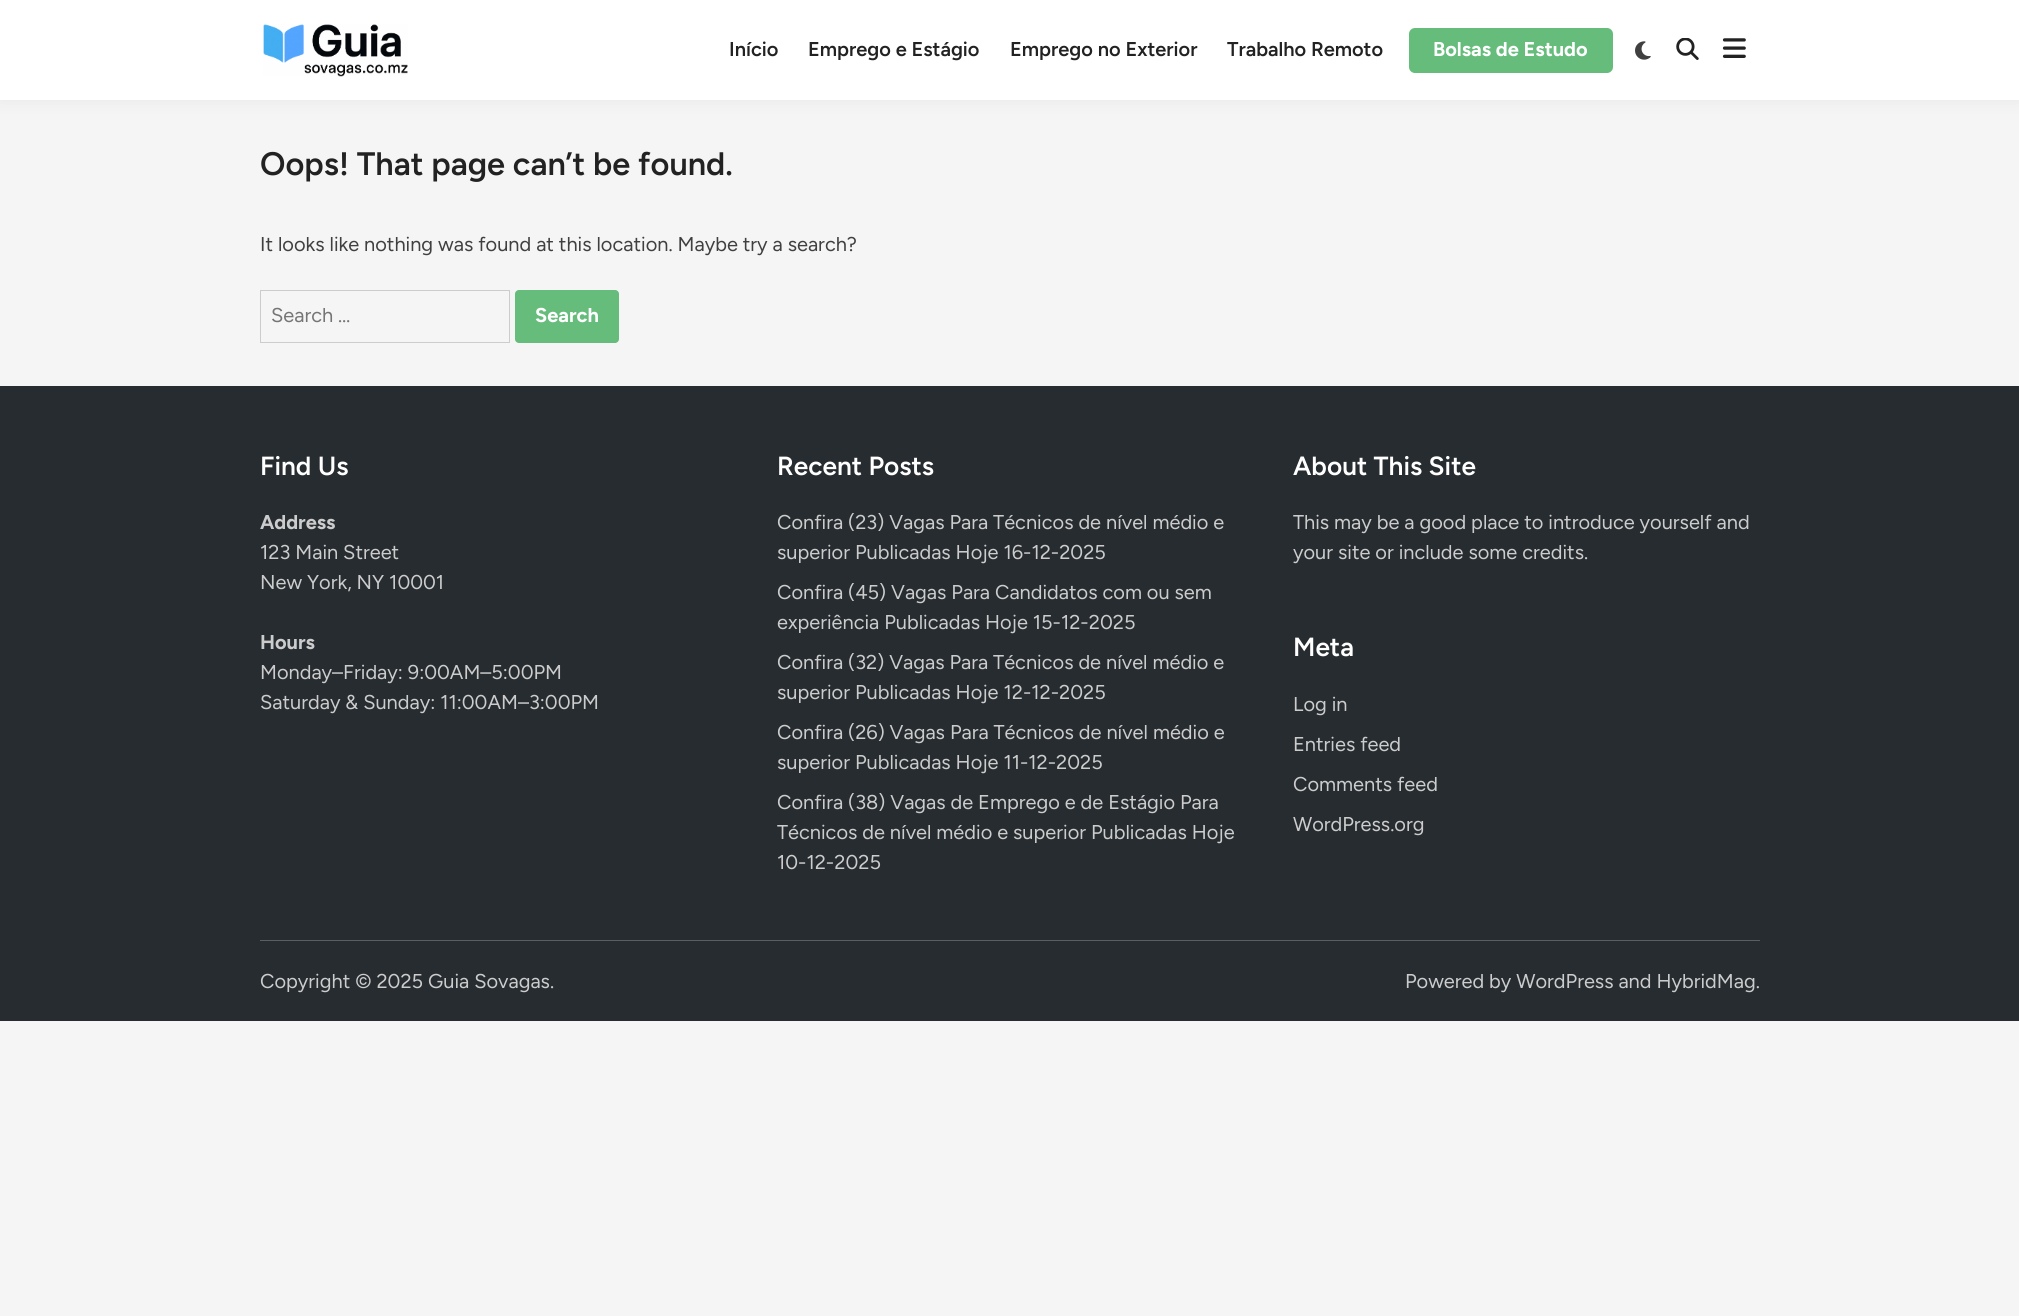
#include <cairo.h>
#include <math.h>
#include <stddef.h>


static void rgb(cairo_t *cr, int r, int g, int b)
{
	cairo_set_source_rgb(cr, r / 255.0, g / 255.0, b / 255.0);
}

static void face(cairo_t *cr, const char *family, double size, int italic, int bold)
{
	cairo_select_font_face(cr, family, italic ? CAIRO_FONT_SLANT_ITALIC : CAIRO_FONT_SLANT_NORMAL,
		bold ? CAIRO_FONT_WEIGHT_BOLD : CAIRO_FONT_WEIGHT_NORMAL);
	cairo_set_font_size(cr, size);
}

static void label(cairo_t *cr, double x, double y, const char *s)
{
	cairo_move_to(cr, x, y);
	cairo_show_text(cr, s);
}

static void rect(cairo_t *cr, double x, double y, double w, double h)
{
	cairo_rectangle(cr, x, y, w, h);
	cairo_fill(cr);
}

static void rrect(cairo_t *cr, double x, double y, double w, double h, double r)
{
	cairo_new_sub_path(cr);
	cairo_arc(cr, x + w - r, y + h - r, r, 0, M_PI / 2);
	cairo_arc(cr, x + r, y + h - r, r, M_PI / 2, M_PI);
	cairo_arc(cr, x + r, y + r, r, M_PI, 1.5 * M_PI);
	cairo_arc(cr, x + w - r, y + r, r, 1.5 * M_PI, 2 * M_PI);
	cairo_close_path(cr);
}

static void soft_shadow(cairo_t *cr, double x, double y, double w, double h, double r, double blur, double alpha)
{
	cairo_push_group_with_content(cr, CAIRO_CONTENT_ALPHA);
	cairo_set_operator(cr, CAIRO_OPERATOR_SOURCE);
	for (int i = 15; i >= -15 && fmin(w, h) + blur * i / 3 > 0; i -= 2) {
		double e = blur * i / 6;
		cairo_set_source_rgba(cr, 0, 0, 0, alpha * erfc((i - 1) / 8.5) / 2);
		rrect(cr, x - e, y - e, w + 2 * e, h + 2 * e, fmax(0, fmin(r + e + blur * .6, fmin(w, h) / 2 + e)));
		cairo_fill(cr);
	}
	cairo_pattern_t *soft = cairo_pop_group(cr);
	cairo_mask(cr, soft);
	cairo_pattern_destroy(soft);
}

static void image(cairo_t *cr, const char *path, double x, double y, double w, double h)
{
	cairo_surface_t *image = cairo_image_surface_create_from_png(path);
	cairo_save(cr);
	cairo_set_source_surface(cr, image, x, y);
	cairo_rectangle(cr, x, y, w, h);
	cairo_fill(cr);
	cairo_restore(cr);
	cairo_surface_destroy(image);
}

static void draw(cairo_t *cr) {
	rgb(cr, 245, 245, 245);
	cairo_paint(cr);
	rgb(cr, 0, 0, 0);
	soft_shadow(cr, 0, 0, 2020, 100, 0, 9.5, 0.06);
	rgb(cr, 255, 255, 255);
	rect(cr, 0, 0, 2019, 100);
	image(cr, "image0.png", 263, 24, 145, 53);
	face(cr, "Figtree SemiBold", 20, 0, 0);
	rgb(cr, 34, 34, 34);
	label(cr, 729, 56, "Início");
	label(cr, 808, 56, "Emprego e Estágio");
	label(cr, 1010, 56, "Emprego no Exterior");
	label(cr, 1227, 56, "Trabalho Remoto");
	rgb(cr, 101, 188, 123);
	rrect(cr, 1409, 28, 204, 45, 6);
	cairo_fill(cr);
	face(cr, "Figtree", 20, 0, 1);
	rgb(cr, 255, 255, 255);
	label(cr, 1433, 56, "Bolsas de Estudo");
	image(cr, "image1.png", 1635, 41, 16, 19);
	image(cr, "image2.png", 1676, 38, 23, 22);
	image(cr, "image3.png", 1722, 38, 24, 20);
	face(cr, "Figtree SemiBold", 32.5, 0, 0);
	rgb(cr, 34, 34, 34);
	label(cr, 260, 175, "Oops! That page can’t be found.");
	face(cr, "Figtree", 20, 0, 0);
	rgb(cr, 64, 64, 64);
	label(cr, 260, 251, "It looks like nothing was found at this location. Maybe try a search?");
	cairo_rectangle(cr, 260.5, 290.5, 249, 52);
	rgb(cr, 204, 204, 204);
	cairo_set_line_width(cr, 1);
	cairo_stroke(cr);
	rgb(cr, 117, 117, 117);
	label(cr, 271, 322, "Search …");
	rgb(cr, 101, 188, 123);
	rrect(cr, 515, 290, 104, 53, 4);
	cairo_fill(cr);
	face(cr, "Figtree", 20, 0, 1);
	rgb(cr, 255, 255, 255);
	label(cr, 535, 322, "Search");
	rgb(cr, 39, 44, 48);
	rect(cr, 0, 386, 2019, 635);
	face(cr, "Figtree SemiBold", 26.25, 0, 0);
	rgb(cr, 255, 255, 255);
	label(cr, 260, 475, "Find Us");
	face(cr, "Figtree", 20, 0, 1);
	rgb(cr, 204, 204, 204);
	label(cr, 260, 529, "Address");
	face(cr, "Figtree", 20, 0, 0);
	label(cr, 260, 559, "123 Main Street");
	label(cr, 260, 589, "New York, NY 10001");
	face(cr, "Figtree", 20, 0, 1);
	label(cr, 260, 649, "Hours");
	face(cr, "Figtree", 20, 0, 0);
	label(cr, 260, 679, "Monday–Friday: 9:00AM–5:00PM");
	label(cr, 260, 709, "Saturday & Sunday: 11:00AM–3:00PM");
	face(cr, "Figtree SemiBold", 26.25, 0, 0);
	rgb(cr, 255, 255, 255);
	label(cr, 777, 475, "Recent Posts");
	face(cr, "Figtree", 20, 0, 0);
	rgb(cr, 204, 204, 204);
	label(cr, 777, 529, "Confira (23) Vagas Para Técnicos de nível médio e");
	label(cr, 777, 559, "superior Publicadas Hoje 16-12-2025");
	label(cr, 777, 599, "Confira (45) Vagas Para Candidatos com ou sem");
	label(cr, 777, 629, "experiência Publicadas Hoje 15-12-2025");
	label(cr, 777, 669, "Confira (32) Vagas Para Técnicos de nível médio e");
	label(cr, 777, 699, "superior Publicadas Hoje 12-12-2025");
	label(cr, 777, 739, "Confira (26) Vagas Para Técnicos de nível médio e");
	label(cr, 777, 769, "superior Publicadas Hoje 11-12-2025");
	label(cr, 777, 809, "Confira (38) Vagas de Emprego e de Estágio Para");
	label(cr, 777, 839, "Técnicos de nível médio e superior Publicadas Hoje");
	label(cr, 777, 869, "10-12-2025");
	face(cr, "Figtree SemiBold", 26.25, 0, 0);
	rgb(cr, 255, 255, 255);
	label(cr, 1293, 475, "About This Site");
	face(cr, "Figtree", 20, 0, 0);
	rgb(cr, 204, 204, 204);
	label(cr, 1293, 529, "This may be a good place to introduce yourself and");
	label(cr, 1293, 559, "your site or include some credits.");
	face(cr, "Figtree SemiBold", 26.25, 0, 0);
	rgb(cr, 255, 255, 255);
	label(cr, 1293, 656, "Meta");
	face(cr, "Figtree", 20, 0, 0);
	rgb(cr, 204, 204, 204);
	label(cr, 1293, 711, "Log in");
	label(cr, 1293, 751, "Entries feed");
	label(cr, 1293, 791, "Comments feed");
	label(cr, 1293, 831, "WordPress.org");
	rgb(cr, 89, 95, 100);
	rect(cr, 260, 940, 1500, 1);
	rgb(cr, 204, 204, 204);
	label(cr, 260, 988, "Copyright © 2025 Guia Sovagas.");
	label(cr, 1405, 988, "Powered by WordPress and HybridMag.");
}

int main(void) {
	cairo_surface_t *surface = cairo_image_surface_create(CAIRO_FORMAT_RGB24, 2019, 1316);
	cairo_t *cr = cairo_create(surface);
	cairo_font_options_t *options = cairo_font_options_create();
	cairo_font_options_set_hint_metrics(options, CAIRO_HINT_METRICS_OFF);
	cairo_font_options_set_hint_style(options, CAIRO_HINT_STYLE_NONE);
	cairo_set_font_options(cr, options);
	cairo_set_miter_limit(cr, 4);
	draw(cr);
	cairo_surface_write_to_png(surface, "render.png");
	cairo_font_options_destroy(options);
	cairo_destroy(cr);
	cairo_surface_destroy(surface);
	return 0;
}
